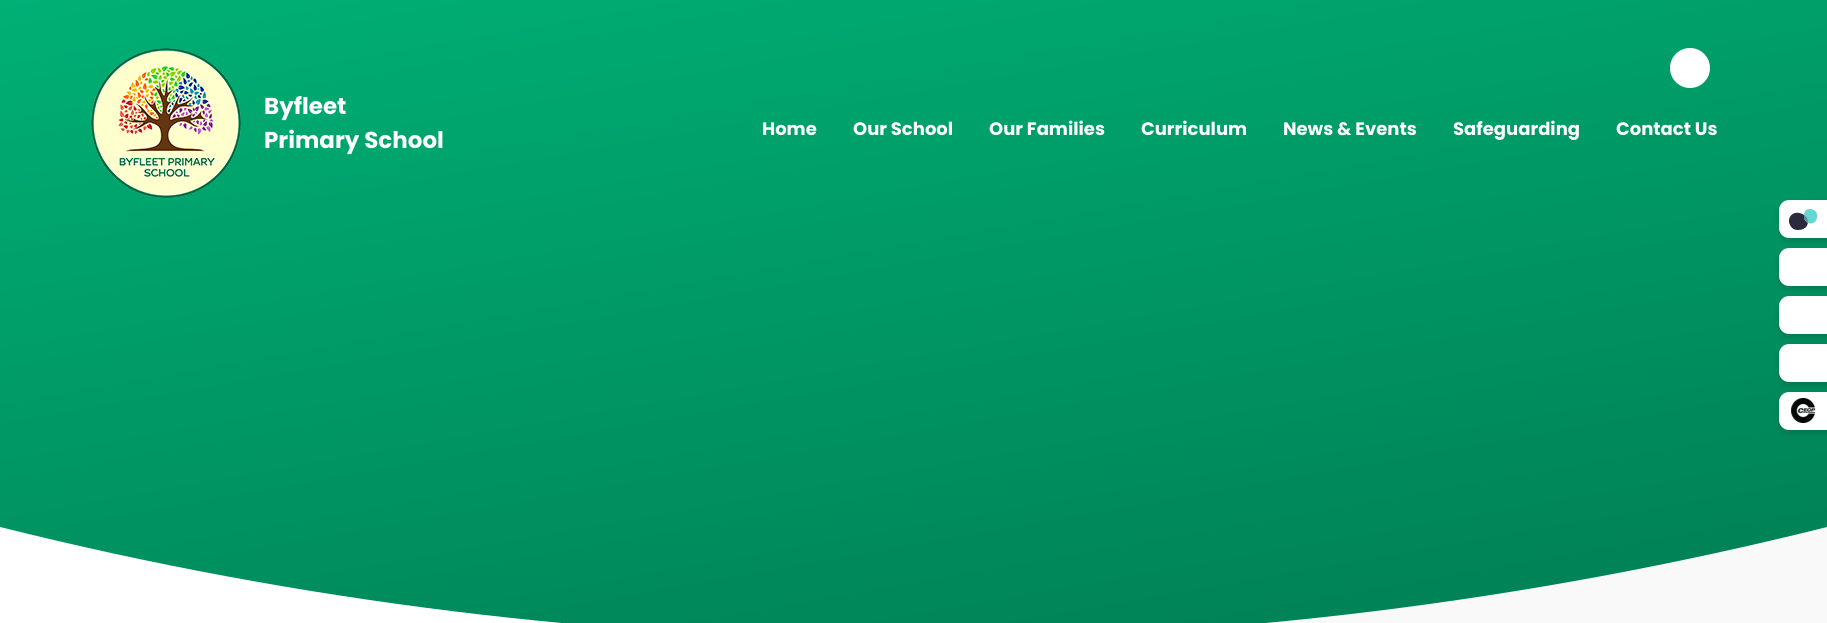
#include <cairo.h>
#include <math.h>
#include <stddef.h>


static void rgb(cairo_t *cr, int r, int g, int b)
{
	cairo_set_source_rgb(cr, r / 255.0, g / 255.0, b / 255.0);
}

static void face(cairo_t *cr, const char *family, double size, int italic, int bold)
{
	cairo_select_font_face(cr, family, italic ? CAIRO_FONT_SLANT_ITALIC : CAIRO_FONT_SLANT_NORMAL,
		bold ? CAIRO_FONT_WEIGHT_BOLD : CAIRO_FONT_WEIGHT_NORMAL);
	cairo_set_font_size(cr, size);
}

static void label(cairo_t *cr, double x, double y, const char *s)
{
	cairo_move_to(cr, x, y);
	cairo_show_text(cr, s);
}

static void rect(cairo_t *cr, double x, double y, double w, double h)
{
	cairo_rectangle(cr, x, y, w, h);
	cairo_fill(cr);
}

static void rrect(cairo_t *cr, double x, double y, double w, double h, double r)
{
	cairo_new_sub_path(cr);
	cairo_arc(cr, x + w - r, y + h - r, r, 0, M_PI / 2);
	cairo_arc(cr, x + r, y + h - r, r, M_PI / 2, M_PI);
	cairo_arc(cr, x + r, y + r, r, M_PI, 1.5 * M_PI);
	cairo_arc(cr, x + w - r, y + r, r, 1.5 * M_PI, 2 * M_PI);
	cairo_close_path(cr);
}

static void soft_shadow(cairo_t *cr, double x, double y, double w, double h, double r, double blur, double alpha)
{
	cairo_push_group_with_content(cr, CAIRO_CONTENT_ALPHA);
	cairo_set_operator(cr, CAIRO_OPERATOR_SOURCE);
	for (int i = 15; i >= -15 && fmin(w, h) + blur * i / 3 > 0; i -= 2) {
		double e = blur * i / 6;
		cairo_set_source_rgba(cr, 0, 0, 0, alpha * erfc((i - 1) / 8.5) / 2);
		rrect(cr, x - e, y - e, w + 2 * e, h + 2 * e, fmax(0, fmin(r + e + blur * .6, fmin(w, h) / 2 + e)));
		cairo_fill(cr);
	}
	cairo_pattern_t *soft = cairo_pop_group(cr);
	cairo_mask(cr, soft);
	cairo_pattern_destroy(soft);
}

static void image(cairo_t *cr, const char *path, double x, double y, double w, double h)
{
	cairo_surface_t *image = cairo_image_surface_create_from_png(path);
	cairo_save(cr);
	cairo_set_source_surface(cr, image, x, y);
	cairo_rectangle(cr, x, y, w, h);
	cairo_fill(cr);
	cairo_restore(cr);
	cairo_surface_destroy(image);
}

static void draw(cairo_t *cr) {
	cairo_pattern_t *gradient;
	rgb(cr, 255, 255, 255);
	cairo_paint(cr);
	gradient = cairo_pattern_create_linear(831, -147, 996, 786);
	cairo_pattern_add_color_stop_rgba(gradient, 0, 0, 0.69, 0.459, 1);
	cairo_pattern_add_color_stop_rgba(gradient, 1, 0, 0.49, 0.325, 1);
	cairo_set_source(cr, gradient);
	cairo_pattern_destroy(gradient);
	rect(cr, 0, 0, 1827, 623);
	gradient = cairo_pattern_create_linear(0, 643, 1827, 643);
	cairo_pattern_add_color_stop_rgba(gradient, 0, 1, 1, 1, 1);
	cairo_pattern_add_color_stop_rgba(gradient, 0.4, 1, 1, 1, 1);
	cairo_pattern_add_color_stop_rgba(gradient, 0.42, 0.976, 0.976, 0.976, 1);
	cairo_pattern_add_color_stop_rgba(gradient, 1, 0.976, 0.976, 0.976, 1);
	cairo_set_source(cr, gradient);
	cairo_pattern_destroy(gradient);
	cairo_new_path(cr);
	cairo_move_to(cr, 0, 527);
	cairo_curve_to(cr, 600, 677, 1227, 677, 1827, 527);
	cairo_line_to(cr, 1827, 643);
	cairo_line_to(cr, 0, 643);
	cairo_close_path(cr);
	cairo_fill(cr);
	image(cr, "image0.png", 91, 48, 150, 150);
	face(cr, "Poppins", 23, 0, 1);
	rgb(cr, 255, 255, 255);
	label(cr, 264, 114, "Byfleet");
	label(cr, 264, 148, "Primary School");
	cairo_new_path(cr);
	cairo_arc(cr, 1690, 68, 20, 0, 2 * M_PI);
	cairo_fill(cr);
	face(cr, "Poppins", 18, 0, 1);
	label(cr, 762, 135, "Home");
	label(cr, 853, 135, "Our School");
	label(cr, 989, 135, "Our Families");
	label(cr, 1141, 135, "Curriculum");
	label(cr, 1283, 135, "News & Events");
	label(cr, 1453, 135, "Safeguarding");
	label(cr, 1616, 135, "Contact Us");
	rgb(cr, 0, 0, 0);
	soft_shadow(cr, 1779, 203, 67, 38, 10, 3, 0.16);
	rgb(cr, 255, 255, 255);
	cairo_new_path(cr);
	cairo_move_to(cr, 1789, 200);
	cairo_line_to(cr, 1827, 200);
	cairo_line_to(cr, 1827, 238);
	cairo_line_to(cr, 1789, 238);
	cairo_curve_to(cr, 1783.5, 238, 1779, 233.5, 1779, 228);
	cairo_line_to(cr, 1779, 210);
	cairo_curve_to(cr, 1779, 204.5, 1783.5, 200, 1789, 200);
	cairo_close_path(cr);
	cairo_fill(cr);
	image(cr, "image1.png", 1789, 209, 28, 21);
	rgb(cr, 0, 0, 0);
	soft_shadow(cr, 1779, 251, 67, 38, 10, 3, 0.16);
	rgb(cr, 255, 255, 255);
	cairo_new_path(cr);
	cairo_move_to(cr, 1789, 248);
	cairo_line_to(cr, 1827, 248);
	cairo_line_to(cr, 1827, 286);
	cairo_line_to(cr, 1789, 286);
	cairo_curve_to(cr, 1783.5, 286, 1779, 281.5, 1779, 276);
	cairo_line_to(cr, 1779, 258);
	cairo_curve_to(cr, 1779, 252.5, 1783.5, 248, 1789, 248);
	cairo_close_path(cr);
	cairo_fill(cr);
	rgb(cr, 0, 0, 0);
	soft_shadow(cr, 1779, 299, 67, 38, 10, 3, 0.16);
	rgb(cr, 255, 255, 255);
	cairo_new_path(cr);
	cairo_move_to(cr, 1789, 296);
	cairo_line_to(cr, 1827, 296);
	cairo_line_to(cr, 1827, 334);
	cairo_line_to(cr, 1789, 334);
	cairo_curve_to(cr, 1783.5, 334, 1779, 329.5, 1779, 324);
	cairo_line_to(cr, 1779, 306);
	cairo_curve_to(cr, 1779, 300.5, 1783.5, 296, 1789, 296);
	cairo_close_path(cr);
	cairo_fill(cr);
	rgb(cr, 0, 0, 0);
	soft_shadow(cr, 1779, 347, 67, 38, 10, 3, 0.16);
	rgb(cr, 255, 255, 255);
	cairo_new_path(cr);
	cairo_move_to(cr, 1789, 344);
	cairo_line_to(cr, 1827, 344);
	cairo_line_to(cr, 1827, 382);
	cairo_line_to(cr, 1789, 382);
	cairo_curve_to(cr, 1783.5, 382, 1779, 377.5, 1779, 372);
	cairo_line_to(cr, 1779, 354);
	cairo_curve_to(cr, 1779, 348.5, 1783.5, 344, 1789, 344);
	cairo_close_path(cr);
	cairo_fill(cr);
	rgb(cr, 0, 0, 0);
	soft_shadow(cr, 1779, 395, 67, 38, 10, 3, 0.16);
	rgb(cr, 255, 255, 255);
	cairo_new_path(cr);
	cairo_move_to(cr, 1789, 392);
	cairo_line_to(cr, 1827, 392);
	cairo_line_to(cr, 1827, 430);
	cairo_line_to(cr, 1789, 430);
	cairo_curve_to(cr, 1783.5, 430, 1779, 425.5, 1779, 420);
	cairo_line_to(cr, 1779, 402);
	cairo_curve_to(cr, 1779, 396.5, 1783.5, 392, 1789, 392);
	cairo_close_path(cr);
	cairo_fill(cr);
	image(cr, "image2.png", 1791, 398, 25, 25);
}

int main(void) {
	cairo_surface_t *surface = cairo_image_surface_create(CAIRO_FORMAT_RGB24, 1827, 623);
	cairo_t *cr = cairo_create(surface);
	cairo_font_options_t *options = cairo_font_options_create();
	cairo_font_options_set_hint_metrics(options, CAIRO_HINT_METRICS_OFF);
	cairo_font_options_set_hint_style(options, CAIRO_HINT_STYLE_NONE);
	cairo_set_font_options(cr, options);
	cairo_set_miter_limit(cr, 4);
	draw(cr);
	cairo_surface_write_to_png(surface, "render.png");
	cairo_font_options_destroy(options);
	cairo_destroy(cr);
	cairo_surface_destroy(surface);
	return 0;
}
